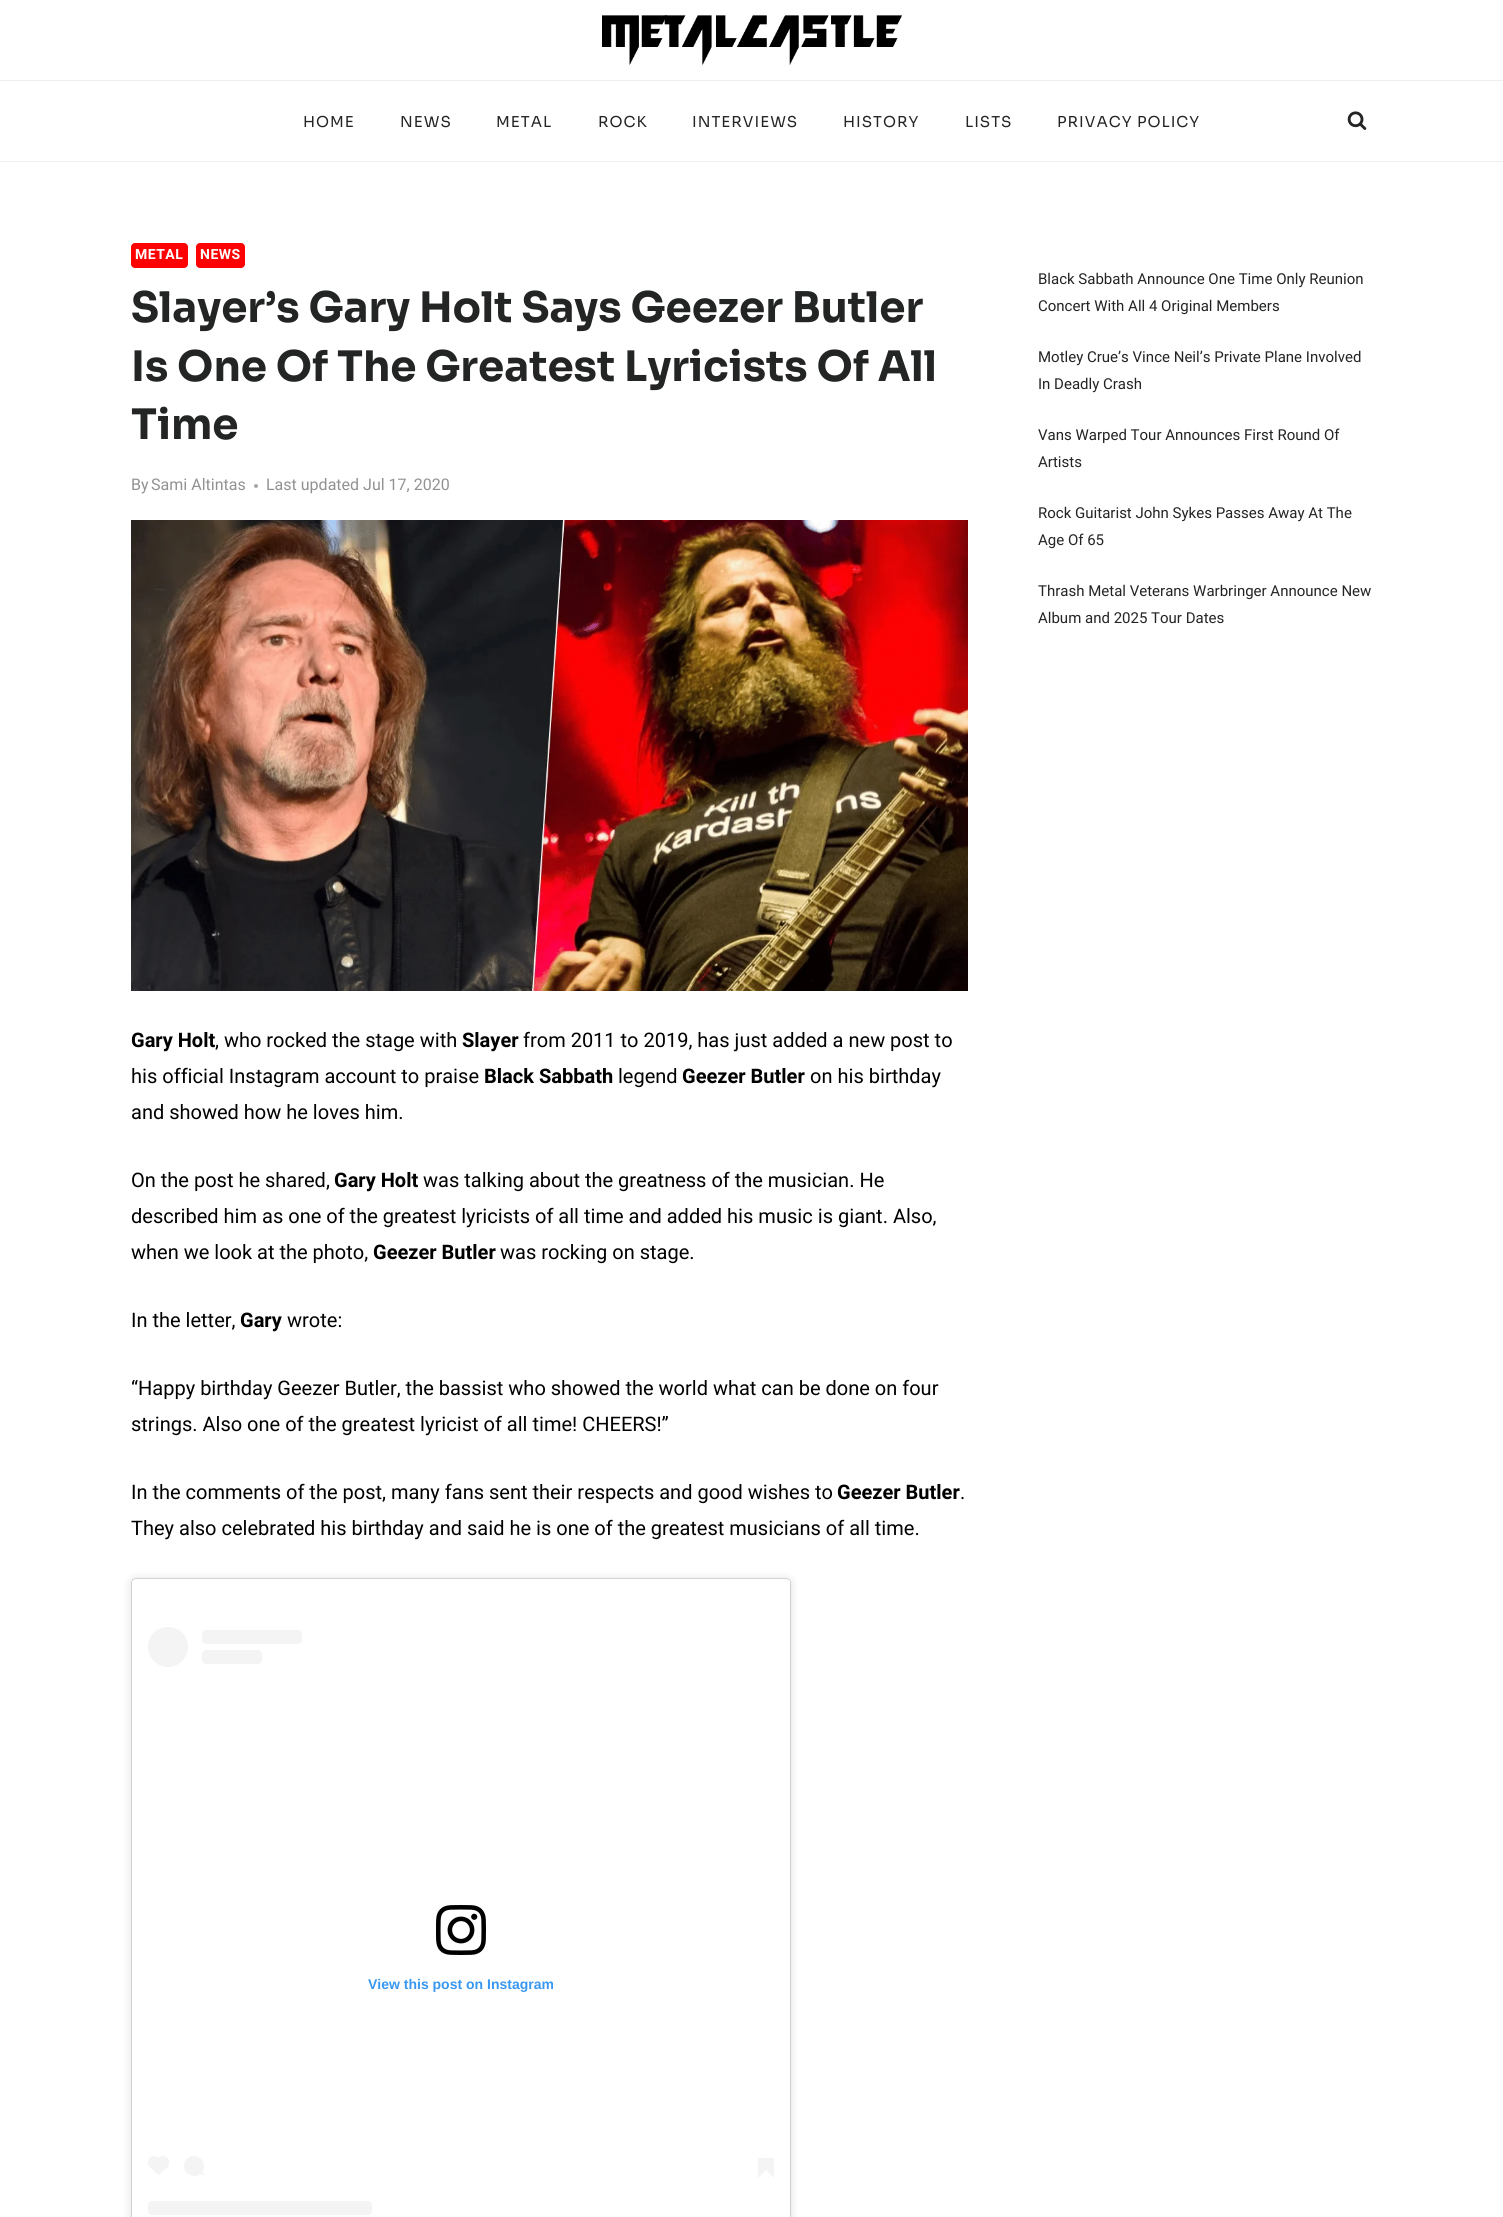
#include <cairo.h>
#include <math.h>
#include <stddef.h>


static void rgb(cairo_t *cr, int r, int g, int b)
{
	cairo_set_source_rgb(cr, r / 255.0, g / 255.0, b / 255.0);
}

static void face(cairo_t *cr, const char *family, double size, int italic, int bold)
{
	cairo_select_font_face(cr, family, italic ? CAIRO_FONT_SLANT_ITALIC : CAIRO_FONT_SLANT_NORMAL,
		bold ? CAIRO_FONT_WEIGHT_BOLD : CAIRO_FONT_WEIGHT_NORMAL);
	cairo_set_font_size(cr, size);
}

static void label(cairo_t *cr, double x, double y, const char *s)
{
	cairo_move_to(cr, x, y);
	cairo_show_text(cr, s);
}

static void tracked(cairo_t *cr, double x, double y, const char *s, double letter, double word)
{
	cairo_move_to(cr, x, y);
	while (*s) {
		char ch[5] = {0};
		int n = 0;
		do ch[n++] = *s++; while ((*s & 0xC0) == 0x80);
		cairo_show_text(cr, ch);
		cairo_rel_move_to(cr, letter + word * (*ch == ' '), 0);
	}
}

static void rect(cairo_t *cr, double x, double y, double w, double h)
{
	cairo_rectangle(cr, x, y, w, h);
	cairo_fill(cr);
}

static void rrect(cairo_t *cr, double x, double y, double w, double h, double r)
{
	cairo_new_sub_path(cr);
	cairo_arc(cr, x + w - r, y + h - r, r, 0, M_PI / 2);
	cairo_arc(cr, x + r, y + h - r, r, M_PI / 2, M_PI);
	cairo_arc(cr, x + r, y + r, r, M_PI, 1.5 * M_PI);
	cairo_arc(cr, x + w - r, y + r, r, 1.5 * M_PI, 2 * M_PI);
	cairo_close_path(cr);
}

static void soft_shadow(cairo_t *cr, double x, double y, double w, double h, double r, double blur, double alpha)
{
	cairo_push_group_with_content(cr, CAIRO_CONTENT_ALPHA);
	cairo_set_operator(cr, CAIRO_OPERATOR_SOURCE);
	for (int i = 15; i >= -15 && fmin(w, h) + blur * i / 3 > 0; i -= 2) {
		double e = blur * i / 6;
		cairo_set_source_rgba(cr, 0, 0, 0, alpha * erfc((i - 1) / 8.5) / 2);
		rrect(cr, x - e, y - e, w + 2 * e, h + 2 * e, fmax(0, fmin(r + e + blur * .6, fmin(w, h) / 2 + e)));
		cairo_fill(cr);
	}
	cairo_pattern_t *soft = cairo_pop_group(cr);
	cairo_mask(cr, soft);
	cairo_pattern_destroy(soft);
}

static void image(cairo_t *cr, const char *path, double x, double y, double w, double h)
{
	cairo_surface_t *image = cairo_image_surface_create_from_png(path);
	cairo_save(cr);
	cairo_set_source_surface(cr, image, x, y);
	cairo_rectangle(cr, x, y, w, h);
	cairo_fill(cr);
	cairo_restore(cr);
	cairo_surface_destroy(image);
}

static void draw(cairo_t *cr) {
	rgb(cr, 255, 255, 255);
	cairo_paint(cr);
	image(cr, "image0.png", 602, 15, 300, 50);
	rgb(cr, 238, 238, 238);
	rect(cr, 0, 80, 1503, 1);
	rect(cr, 0, 161, 1503, 1);
	face(cr, "Sora", 15, 0, 0);
	rgb(cr, 35, 36, 36);
	tracked(cr, 303, 127, "HOME", 1, 0);
	tracked(cr, 400, 127, "NEWS", 1, 0);
	tracked(cr, 496, 127, "METAL", 1, 0);
	tracked(cr, 598, 127, "ROCK", 1, 0);
	tracked(cr, 692, 127, "INTERVIEWS", 1, 0);
	tracked(cr, 843, 127, "HISTORY", 1, 0);
	tracked(cr, 965, 127, "LISTS", 1, 0);
	tracked(cr, 1057, 127, "PRIVACY POLICY", 1, 0);
	image(cr, "image1.png", 1347, 111, 20, 19);
	rgb(cr, 252, 2, 2);
	rrect(cr, 131, 243, 57, 25, 4);
	cairo_fill(cr);
	face(cr, "Heebo", 14, 0, 1);
	rgb(cr, 255, 255, 255);
	tracked(cr, 135, 259, "METAL", 0.5, 0);
	rgb(cr, 252, 2, 2);
	rrect(cr, 196, 243, 49, 25, 4);
	cairo_fill(cr);
	rgb(cr, 255, 255, 255);
	tracked(cr, 200, 259, "NEWS", 0.5, 0);
	face(cr, "Sora", 42, 0, 1);
	rgb(cr, 35, 36, 36);
	label(cr, 131, 322, "Slayer’s Gary Holt Says Geezer Butler");
	label(cr, 131, 381, "Is One Of The Greatest Lyricists Of All");
	label(cr, 131, 439, "Time");
	face(cr, "Heebo", 16, 0, 0);
	rgb(cr, 145, 146, 146);
	label(cr, 131, 490, "By");
	label(cr, 151, 490, "Sami Altintas");
	rgb(cr, 167, 168, 168);
	cairo_new_path(cr);
	cairo_arc(cr, 256, 486, 2, 0, 2 * M_PI);
	cairo_fill(cr);
	rgb(cr, 145, 146, 146);
	label(cr, 266, 490, "Last updated Jul 17, 2020");
	image(cr, "image2.png", 131, 520, 837, 471);
	face(cr, "Heebo", 20, 0, 1);
	rgb(cr, 0, 0, 0);
	label(cr, 131, 1047, "Gary Holt");
	face(cr, "Heebo", 20, 0, 0);
	label(cr, 215, 1047, ", who rocked the stage with");
	face(cr, "Heebo", 20, 0, 1);
	label(cr, 462, 1047, "Slayer");
	face(cr, "Heebo", 20, 0, 0);
	label(cr, 523, 1047, "from 2011 to 2019, has just added a new post to");
	label(cr, 131, 1083, "his official Instagram account to praise");
	face(cr, "Heebo", 20, 0, 1);
	label(cr, 484, 1083, "Black Sabbath");
	face(cr, "Heebo", 20, 0, 0);
	label(cr, 618, 1083, "legend");
	face(cr, "Heebo", 20, 0, 1);
	label(cr, 682, 1083, "Geezer Butler");
	face(cr, "Heebo", 20, 0, 0);
	label(cr, 810, 1083, "on his birthday");
	label(cr, 131, 1119, "and showed how he loves him.");
	label(cr, 131, 1187, "On the post he shared,");
	face(cr, "Heebo", 20, 0, 1);
	label(cr, 334, 1187, "Gary Holt");
	face(cr, "Heebo", 20, 0, 0);
	label(cr, 423, 1187, "was talking about the greatness of the musician. He");
	label(cr, 131, 1223, "described him as one of the greatest lyricists of all time and added his music is giant. Also,");
	label(cr, 131, 1259, "when we look at the photo,");
	face(cr, "Heebo", 20, 0, 1);
	label(cr, 373, 1259, "Geezer Butler");
	face(cr, "Heebo", 20, 0, 0);
	label(cr, 500, 1259, "was rocking on stage.");
	label(cr, 131, 1327, "In the letter,");
	face(cr, "Heebo", 20, 0, 1);
	label(cr, 240, 1327, "Gary");
	face(cr, "Heebo", 20, 0, 0);
	label(cr, 287, 1327, "wrote:");
	label(cr, 131, 1395, "“Happy birthday Geezer Butler, the bassist who showed the world what can be done on four");
	label(cr, 131, 1431, "strings. Also one of the greatest lyricist of all time! CHEERS!”");
	label(cr, 131, 1499, "In the comments of the post, many fans sent their respects and good wishes to");
	face(cr, "Heebo", 20, 0, 1);
	label(cr, 837, 1499, "Geezer Butler");
	face(cr, "Heebo", 20, 0, 0);
	label(cr, 960, 1499, ".");
	label(cr, 131, 1535, "They also celebrated his birthday and said he is one of the greatest musicians of all time.");
	rgb(cr, 0, 0, 0);
	soft_shadow(cr, 132, 1580, 658, 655, 3, 5, 0.15);
	soft_shadow(cr, 132, 1579, 658, 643, 3, 0.5, 0.5);
	rgb(cr, 255, 255, 255);
	rrect(cr, 132, 1579, 658, 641, 3);
	cairo_fill(cr);
	rgb(cr, 244, 244, 244);
	cairo_arc(cr, 168, 1647, 20, 0, 2 * M_PI);
	cairo_fill(cr);
	rrect(cr, 202, 1630, 100, 14, 4);
	cairo_fill(cr);
	rrect(cr, 202, 1650, 60, 14, 4);
	cairo_fill(cr);
	image(cr, "image3.png", 436, 1905, 50, 50);
	face(cr, "Liberation Sans", 14, 0, 1);
	rgb(cr, 56, 151, 240);
	label(cr, 368, 1989, "View this post on Instagram");
	rgb(cr, 244, 244, 244);
	rrect(cr, 148, 2156, 12, 13, 6);
	cairo_fill(cr);
	cairo_new_path(cr);
	cairo_move_to(cr, 149.5, 2166.5);
	cairo_line_to(cr, 158.5, 2157.5);
	cairo_line_to(cr, 167.5, 2166.5);
	cairo_line_to(cr, 158.5, 2175.5);
	cairo_close_path(cr);
	cairo_fill(cr);
	rrect(cr, 157, 2156, 12, 13, 6);
	cairo_fill(cr);
	cairo_arc(cr, 194, 2166, 10, 0, 2 * M_PI);
	cairo_fill(cr);
	cairo_new_path(cr);
	cairo_move_to(cr, 199.5, 2174);
	cairo_line_to(cr, 201.5, 2171);
	cairo_line_to(cr, 205.5, 2175.5);
	cairo_close_path(cr);
	cairo_fill(cr);
	rect(cr, 758, 2158, 16, 12);
	cairo_new_path(cr);
	cairo_move_to(cr, 758, 2170);
	cairo_line_to(cr, 766, 2170);
	cairo_line_to(cr, 758, 2178);
	cairo_close_path(cr);
	cairo_fill(cr);
	cairo_new_path(cr);
	cairo_move_to(cr, 766, 2170);
	cairo_line_to(cr, 774, 2170);
	cairo_line_to(cr, 774, 2178);
	cairo_close_path(cr);
	cairo_fill(cr);
	rrect(cr, 148, 2201, 224, 14, 4);
	cairo_fill(cr);
	face(cr, "Heebo", 15, 0, 0);
	rgb(cr, 35, 36, 36);
	label(cr, 1038, 284, "Black Sabbath Announce One Time Only Reunion");
	label(cr, 1038, 311, "Concert With All 4 Original Members");
	label(cr, 1038, 362, "Motley Crue’s Vince Neil’s Private Plane Involved");
	label(cr, 1038, 389, "In Deadly Crash");
	label(cr, 1038, 440, "Vans Warped Tour Announces First Round Of");
	label(cr, 1038, 467, "Artists");
	label(cr, 1038, 518, "Rock Guitarist John Sykes Passes Away At The");
	label(cr, 1038, 545, "Age Of 65");
	label(cr, 1038, 596, "Thrash Metal Veterans Warbringer Announce New");
	label(cr, 1038, 623, "Album and 2025 Tour Dates");
}

int main(void) {
	cairo_surface_t *surface = cairo_image_surface_create(CAIRO_FORMAT_RGB24, 1503, 2217);
	cairo_t *cr = cairo_create(surface);
	cairo_font_options_t *options = cairo_font_options_create();
	cairo_font_options_set_hint_metrics(options, CAIRO_HINT_METRICS_OFF);
	cairo_font_options_set_hint_style(options, CAIRO_HINT_STYLE_NONE);
	cairo_set_font_options(cr, options);
	cairo_set_miter_limit(cr, 4);
	draw(cr);
	cairo_surface_write_to_png(surface, "render.png");
	cairo_font_options_destroy(options);
	cairo_destroy(cr);
	cairo_surface_destroy(surface);
	return 0;
}
